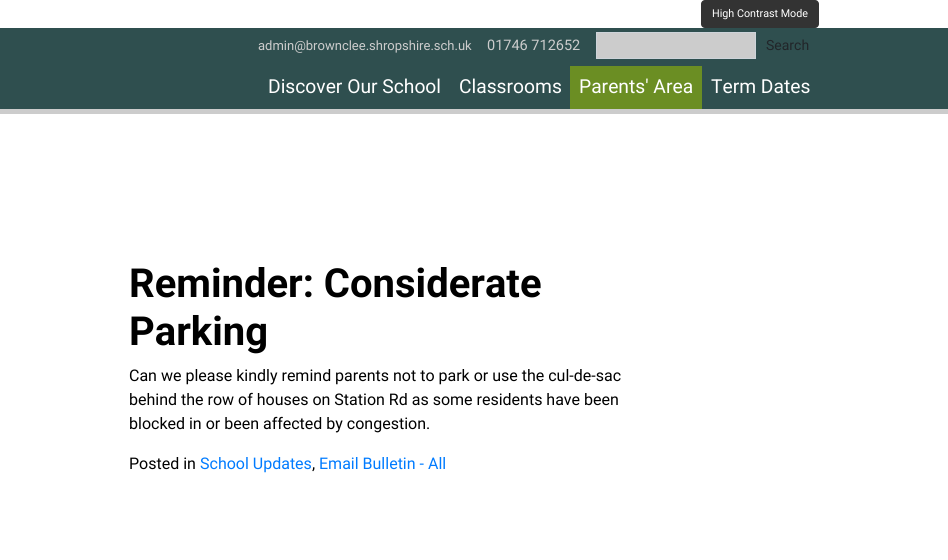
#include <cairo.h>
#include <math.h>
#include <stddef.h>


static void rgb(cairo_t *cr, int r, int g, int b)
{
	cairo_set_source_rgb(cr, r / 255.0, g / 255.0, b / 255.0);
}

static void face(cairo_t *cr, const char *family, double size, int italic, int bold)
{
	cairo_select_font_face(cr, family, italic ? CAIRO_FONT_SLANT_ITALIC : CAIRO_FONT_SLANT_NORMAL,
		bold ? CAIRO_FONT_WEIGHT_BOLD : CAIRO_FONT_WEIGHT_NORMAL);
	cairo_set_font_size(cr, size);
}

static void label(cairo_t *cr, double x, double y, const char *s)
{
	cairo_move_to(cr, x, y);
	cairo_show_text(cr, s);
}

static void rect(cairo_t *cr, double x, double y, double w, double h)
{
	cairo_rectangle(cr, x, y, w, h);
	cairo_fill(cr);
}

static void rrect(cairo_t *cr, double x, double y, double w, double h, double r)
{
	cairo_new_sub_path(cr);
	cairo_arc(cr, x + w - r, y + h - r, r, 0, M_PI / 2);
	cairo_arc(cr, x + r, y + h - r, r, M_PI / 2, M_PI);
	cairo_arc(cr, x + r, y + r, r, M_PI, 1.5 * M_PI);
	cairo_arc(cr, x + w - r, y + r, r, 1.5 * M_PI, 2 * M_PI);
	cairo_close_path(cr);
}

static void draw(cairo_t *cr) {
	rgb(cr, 255, 255, 255);
	cairo_paint(cr);
	rgb(cr, 204, 204, 204);
	rect(cr, 0, 109, 948, 5);
	rgb(cr, 51, 51, 51);
	rrect(cr, 701, 0, 118, 28, 4);
	cairo_fill(cr);
	face(cr, "Roboto", 10.75, 0, 0);
	rgb(cr, 255, 255, 255);
	label(cr, 712, 17, "High Contrast Mode");
	rgb(cr, 47, 79, 79);
	rect(cr, 0, 28, 948, 81);
	face(cr, "Roboto", 13, 0, 0);
	rgb(cr, 204, 204, 204);
	label(cr, 258, 50, "admin@brownclee.shropshire.sch.uk");
	face(cr, "Roboto", 14.5, 0, 0);
	label(cr, 487, 50, "01746 712652");
	cairo_rectangle(cr, 596.5, 32.5, 159, 26);
	cairo_fill_preserve(cr);
	rgb(cr, 206, 212, 218);
	cairo_set_line_width(cr, 1);
	cairo_stroke(cr);
	face(cr, "Roboto", 14, 0, 0);
	rgb(cr, 33, 37, 41);
	label(cr, 766, 50, "Search");
	face(cr, "Roboto", 19.25, 0, 0);
	rgb(cr, 255, 255, 255);
	label(cr, 268, 93, "Discover Our School");
	label(cr, 459, 93, "Classrooms");
	rgb(cr, 107, 142, 35);
	rect(cr, 570, 66, 132, 43);
	rgb(cr, 255, 255, 255);
	label(cr, 579, 93, "Parents' Area");
	label(cr, 711, 93, "Term Dates");
	face(cr, "Roboto", 40, 0, 1);
	rgb(cr, 0, 0, 0);
	label(cr, 129, 297, "Reminder: Considerate");
	label(cr, 129, 345, "Parking");
	face(cr, "Roboto", 16, 0, 0);
	label(cr, 129, 381, "Can we please kindly remind parents not to park or use the cul-de-sac");
	label(cr, 129, 405, "behind the row of houses on Station Rd as some residents have been");
	label(cr, 129, 429, "blocked in or been affected by congestion.");
	label(cr, 129, 469, "Posted in");
	rgb(cr, 0, 123, 255);
	label(cr, 200, 469, "School Updates");
	rgb(cr, 0, 0, 0);
	label(cr, 312, 469, ",");
	rgb(cr, 0, 123, 255);
	label(cr, 319, 469, "Email Bulletin - All");
}

int main(void) {
	cairo_surface_t *surface = cairo_image_surface_create(CAIRO_FORMAT_RGB24, 948, 560);
	cairo_t *cr = cairo_create(surface);
	cairo_font_options_t *options = cairo_font_options_create();
	cairo_font_options_set_hint_metrics(options, CAIRO_HINT_METRICS_OFF);
	cairo_font_options_set_hint_style(options, CAIRO_HINT_STYLE_NONE);
	cairo_set_font_options(cr, options);
	cairo_set_miter_limit(cr, 4);
	draw(cr);
	cairo_surface_write_to_png(surface, "render.png");
	cairo_font_options_destroy(options);
	cairo_destroy(cr);
	cairo_surface_destroy(surface);
	return 0;
}
